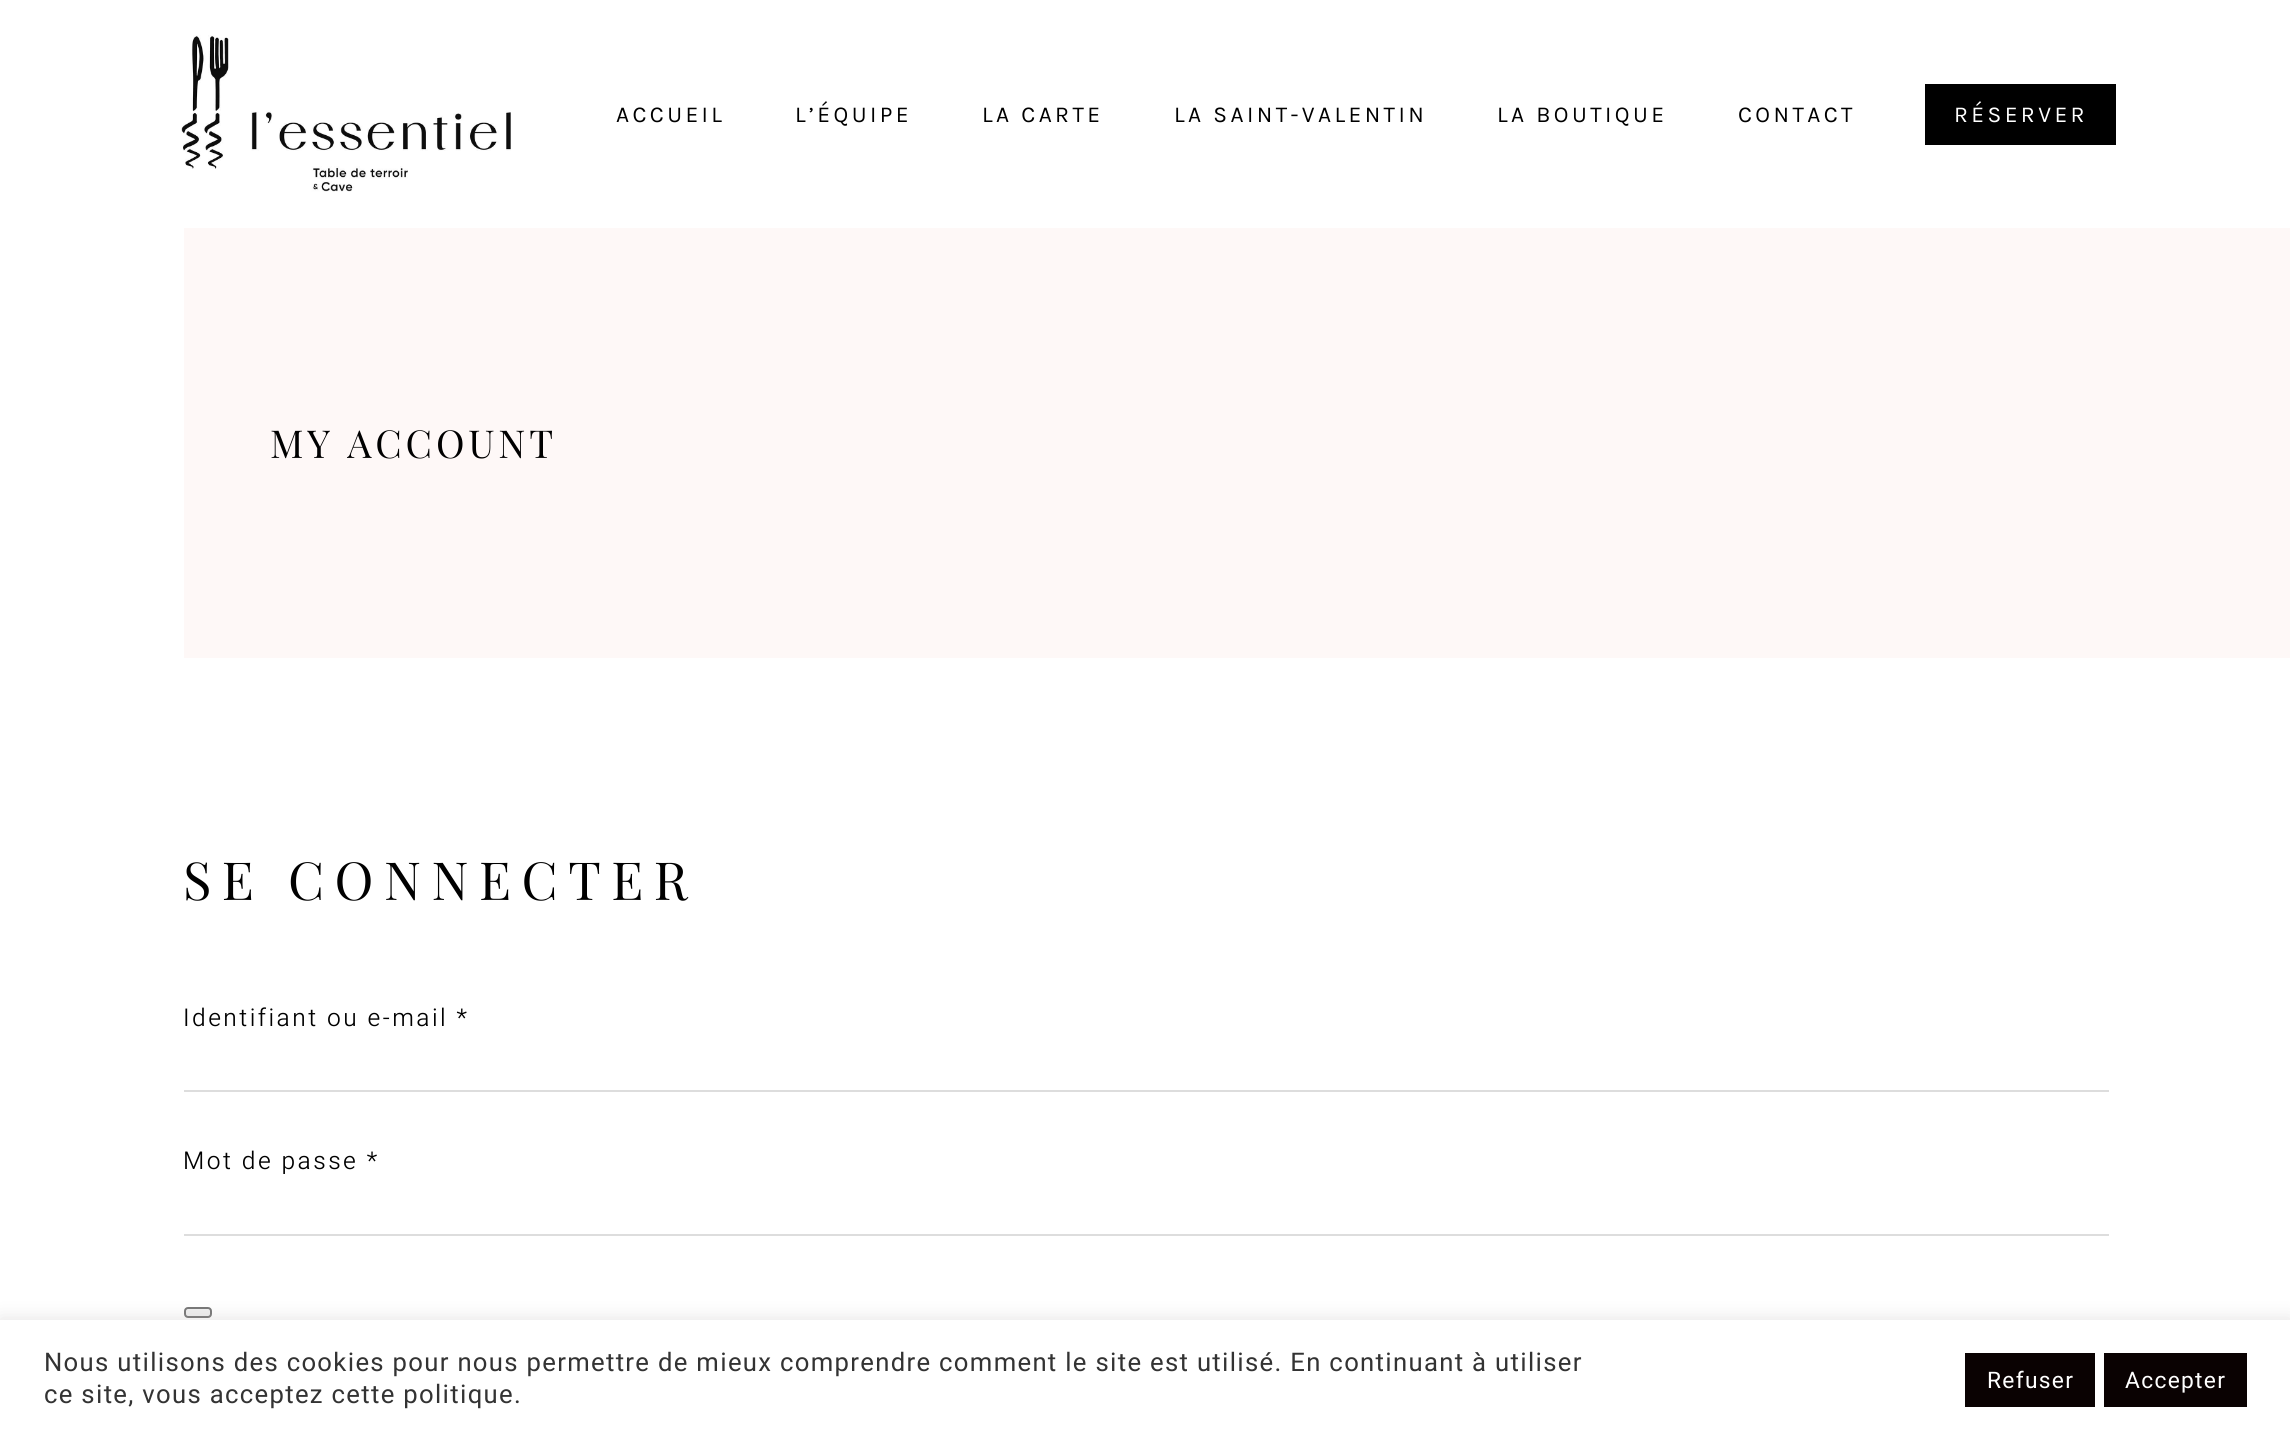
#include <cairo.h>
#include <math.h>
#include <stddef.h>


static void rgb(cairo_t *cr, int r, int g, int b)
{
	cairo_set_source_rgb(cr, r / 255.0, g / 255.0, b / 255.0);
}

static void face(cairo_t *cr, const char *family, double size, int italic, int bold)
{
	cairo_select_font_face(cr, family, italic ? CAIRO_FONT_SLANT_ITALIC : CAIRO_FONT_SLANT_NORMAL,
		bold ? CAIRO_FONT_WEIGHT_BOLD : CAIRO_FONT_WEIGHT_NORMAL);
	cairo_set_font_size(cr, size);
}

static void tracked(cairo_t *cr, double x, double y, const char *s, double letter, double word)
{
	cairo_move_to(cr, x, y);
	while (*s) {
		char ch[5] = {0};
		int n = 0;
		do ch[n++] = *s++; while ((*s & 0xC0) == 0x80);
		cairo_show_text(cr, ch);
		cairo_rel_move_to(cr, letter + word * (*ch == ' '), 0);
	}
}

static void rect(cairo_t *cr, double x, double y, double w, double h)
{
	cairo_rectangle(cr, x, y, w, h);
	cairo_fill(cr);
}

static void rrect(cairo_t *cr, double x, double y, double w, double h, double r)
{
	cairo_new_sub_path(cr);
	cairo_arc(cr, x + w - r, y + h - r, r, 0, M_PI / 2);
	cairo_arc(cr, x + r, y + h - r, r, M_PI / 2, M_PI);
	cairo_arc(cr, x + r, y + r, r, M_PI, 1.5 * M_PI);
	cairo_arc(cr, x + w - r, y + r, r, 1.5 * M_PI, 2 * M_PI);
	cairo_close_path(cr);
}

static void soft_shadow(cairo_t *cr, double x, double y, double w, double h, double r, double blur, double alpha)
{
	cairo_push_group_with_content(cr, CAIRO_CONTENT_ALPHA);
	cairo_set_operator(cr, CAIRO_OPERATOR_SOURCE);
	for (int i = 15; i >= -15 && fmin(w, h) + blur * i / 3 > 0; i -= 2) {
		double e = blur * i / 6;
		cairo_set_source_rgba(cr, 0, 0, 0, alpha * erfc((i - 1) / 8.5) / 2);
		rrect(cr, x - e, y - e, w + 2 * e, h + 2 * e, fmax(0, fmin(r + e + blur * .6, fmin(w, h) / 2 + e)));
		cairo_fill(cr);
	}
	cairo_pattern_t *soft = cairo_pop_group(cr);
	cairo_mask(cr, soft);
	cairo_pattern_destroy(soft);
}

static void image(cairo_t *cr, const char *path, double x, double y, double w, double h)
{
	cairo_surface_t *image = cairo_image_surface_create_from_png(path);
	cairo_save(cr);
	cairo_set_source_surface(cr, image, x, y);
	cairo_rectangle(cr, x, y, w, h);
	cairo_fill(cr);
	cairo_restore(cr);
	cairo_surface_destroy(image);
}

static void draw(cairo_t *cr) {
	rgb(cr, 255, 255, 255);
	cairo_paint(cr);
	image(cr, "image0.png", 181, 35, 330, 157);
	face(cr, "Karla", 22.75, 0, 0);
	rgb(cr, 0, 0, 0);
	tracked(cr, 616, 122, "ACCUEIL", 3.4, 0);
	tracked(cr, 795, 122, "L’ÉQUIPE", 3.4, 0);
	tracked(cr, 982, 122, "LA CARTE", 3.4, 0);
	tracked(cr, 1174, 122, "LA SAINT-VALENTIN", 3.4, 0);
	tracked(cr, 1497, 122, "LA BOUTIQUE", 3.4, 0);
	tracked(cr, 1738, 122, "CONTACT", 3.4, 0);
	rect(cr, 1925, 84, 191, 61);
	rgb(cr, 255, 255, 255);
	tracked(cr, 1954, 122, "RÉSERVER", 3.4, 0);
	rgb(cr, 254, 248, 247);
	rect(cr, 184, 228, 2106, 430);
	face(cr, "Playfair Display", 38.5, 0, 0);
	rgb(cr, 0, 0, 0);
	tracked(cr, 270, 458, "MY ACCOUNT", 3.8, 0);
	face(cr, "Playfair Display", 52.5, 0, 0);
	tracked(cr, 183, 900, "SE CONNECTER", 10.5, 0);
	face(cr, "Heebo Light", 24.5, 0, 0);
	tracked(cr, 183, 1026, "Identifiant ou e-mail *", 2.45, 0);
	rgb(cr, 221, 221, 221);
	rect(cr, 184, 1090, 1925, 2);
	rgb(cr, 0, 0, 0);
	tracked(cr, 183, 1169, "Mot de passe *", 2.45, 0);
	rgb(cr, 221, 221, 221);
	rect(cr, 184, 1234, 1925, 2);
	rgb(cr, 239, 239, 239);
	rrect(cr, 185, 1308, 26, 9, 3);
	cairo_fill_preserve(cr);
	rgb(cr, 118, 118, 118);
	cairo_stroke(cr);
	rgb(cr, 172, 171, 171);
	soft_shadow(cr, 0, 1318, 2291, 121, 0, 9, 0.3);
	rgb(cr, 255, 255, 255);
	rect(cr, 0, 1320, 2290, 120);
	face(cr, "Heebo", 25.67, 0, 0);
	rgb(cr, 51, 51, 51);
	tracked(cr, 44, 1371, "Nous utilisons des cookies pour nous permettre de mieux comprendre comment le site est utilisé. En continuant à utiliser", 1.31, 0);
	tracked(cr, 44, 1403, "ce site, vous acceptez cette politique.", 1.31, 0);
	rgb(cr, 10, 2, 2);
	rect(cr, 1965, 1353, 130, 54);
	face(cr, "Heebo", 22.75, 0, 0);
	rgb(cr, 255, 255, 255);
	tracked(cr, 1987, 1388, "Refuser", 1.31, 0);
	rgb(cr, 10, 2, 2);
	rect(cr, 2104, 1353, 143, 54);
	rgb(cr, 255, 255, 255);
	tracked(cr, 2125, 1388, "Accepter", 1.31, 0);
}

int main(void) {
	cairo_surface_t *surface = cairo_image_surface_create(CAIRO_FORMAT_RGB24, 2290, 1440);
	cairo_t *cr = cairo_create(surface);
	cairo_font_options_t *options = cairo_font_options_create();
	cairo_font_options_set_hint_metrics(options, CAIRO_HINT_METRICS_OFF);
	cairo_font_options_set_hint_style(options, CAIRO_HINT_STYLE_NONE);
	cairo_set_font_options(cr, options);
	cairo_set_miter_limit(cr, 4);
	draw(cr);
	cairo_surface_write_to_png(surface, "render.png");
	cairo_font_options_destroy(options);
	cairo_destroy(cr);
	cairo_surface_destroy(surface);
	return 0;
}
